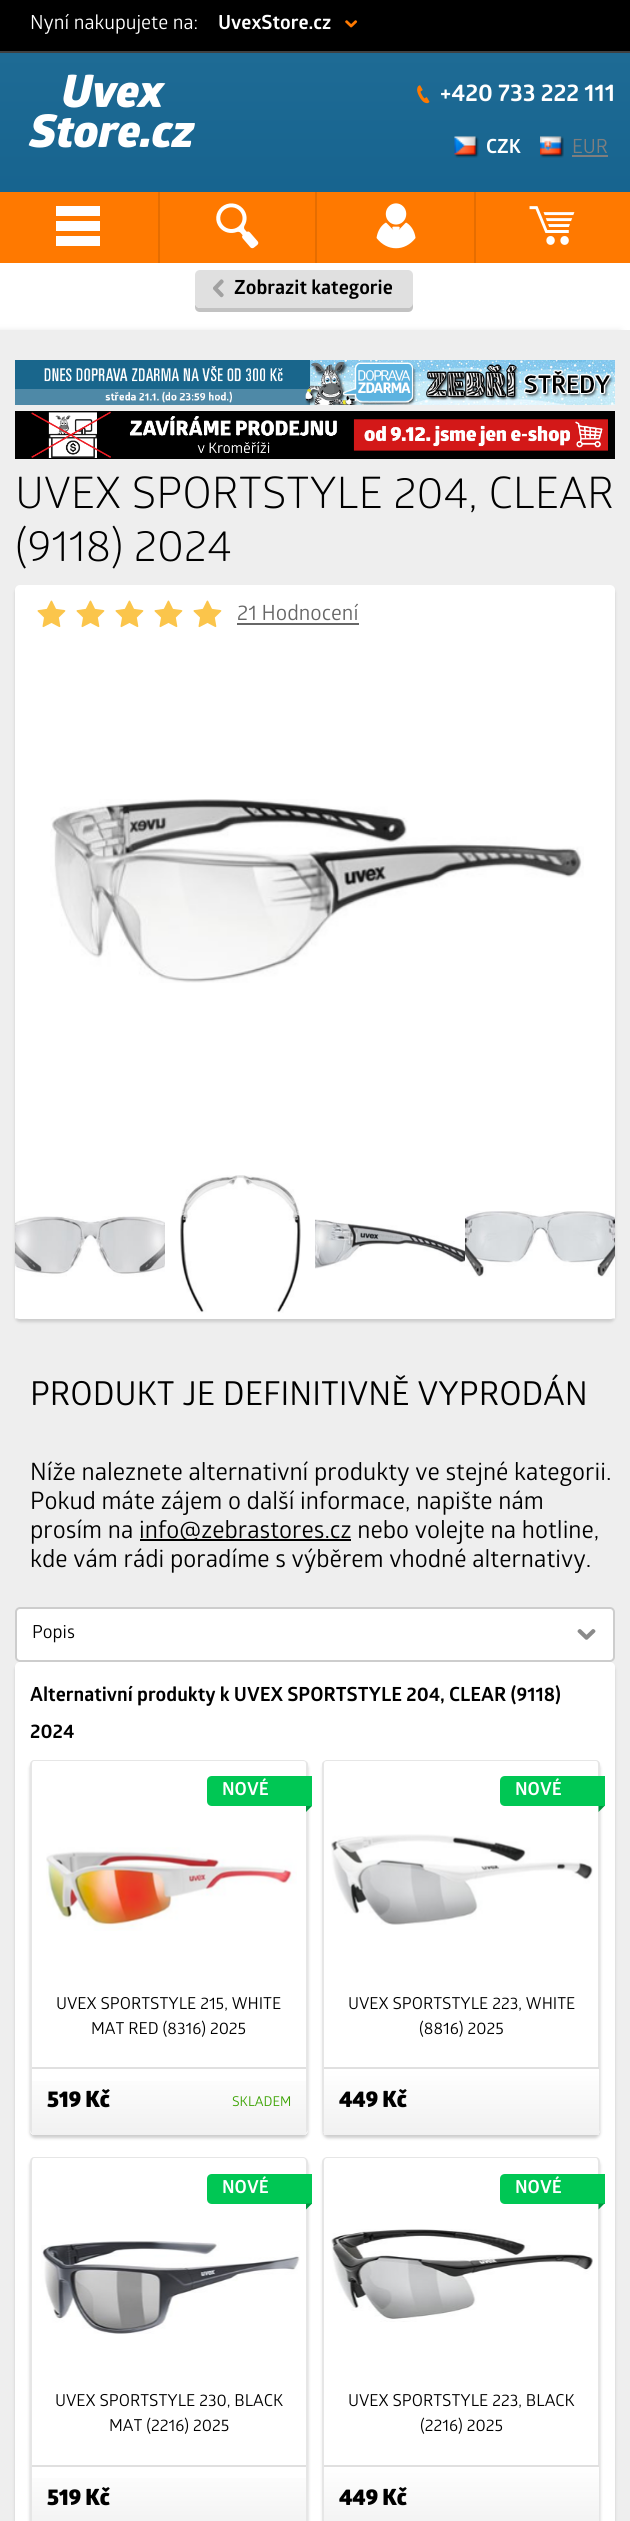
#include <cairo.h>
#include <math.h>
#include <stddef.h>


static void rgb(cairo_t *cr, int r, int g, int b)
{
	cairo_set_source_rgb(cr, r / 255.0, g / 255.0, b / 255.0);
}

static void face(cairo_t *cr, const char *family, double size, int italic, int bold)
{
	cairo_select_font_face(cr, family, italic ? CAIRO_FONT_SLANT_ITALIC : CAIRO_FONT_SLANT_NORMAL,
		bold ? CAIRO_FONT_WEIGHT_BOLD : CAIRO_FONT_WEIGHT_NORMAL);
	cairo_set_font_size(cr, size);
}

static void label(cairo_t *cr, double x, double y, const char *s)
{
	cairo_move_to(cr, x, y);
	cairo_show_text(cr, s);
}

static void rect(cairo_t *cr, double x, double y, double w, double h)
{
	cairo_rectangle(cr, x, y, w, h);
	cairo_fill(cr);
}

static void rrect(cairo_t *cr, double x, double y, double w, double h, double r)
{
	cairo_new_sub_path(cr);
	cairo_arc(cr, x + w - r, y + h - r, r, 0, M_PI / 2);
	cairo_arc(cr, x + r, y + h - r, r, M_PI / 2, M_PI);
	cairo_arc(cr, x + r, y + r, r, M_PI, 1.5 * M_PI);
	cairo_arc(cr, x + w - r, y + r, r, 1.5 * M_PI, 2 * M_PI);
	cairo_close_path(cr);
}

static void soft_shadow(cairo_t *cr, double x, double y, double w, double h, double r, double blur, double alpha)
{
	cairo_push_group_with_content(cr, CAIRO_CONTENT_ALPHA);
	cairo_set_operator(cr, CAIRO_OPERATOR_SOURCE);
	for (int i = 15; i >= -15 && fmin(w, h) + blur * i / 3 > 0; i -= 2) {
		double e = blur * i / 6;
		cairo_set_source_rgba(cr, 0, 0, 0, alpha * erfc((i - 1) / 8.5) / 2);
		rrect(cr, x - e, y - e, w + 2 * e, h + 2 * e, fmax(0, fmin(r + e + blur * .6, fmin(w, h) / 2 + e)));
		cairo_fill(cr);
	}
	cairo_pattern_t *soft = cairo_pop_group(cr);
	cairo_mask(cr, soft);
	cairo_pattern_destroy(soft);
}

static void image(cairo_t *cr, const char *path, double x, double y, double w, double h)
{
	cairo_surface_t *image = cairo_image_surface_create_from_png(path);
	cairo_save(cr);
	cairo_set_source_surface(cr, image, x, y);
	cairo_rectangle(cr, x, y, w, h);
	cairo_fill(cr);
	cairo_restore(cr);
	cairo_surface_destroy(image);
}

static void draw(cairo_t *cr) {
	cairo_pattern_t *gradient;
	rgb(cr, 255, 255, 255);
	cairo_paint(cr);
	rgb(cr, 0, 0, 0);
	rect(cr, 0, 0, 630, 51);
	rgb(cr, 64, 64, 64);
	rect(cr, 0, 51, 630, 2);
	face(cr, "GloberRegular", 19.5, 0, 0);
	rgb(cr, 255, 255, 255);
	label(cr, 30, 29, "Nyní nakupujete na:");
	face(cr, "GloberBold", 19.5, 0, 0);
	label(cr, 218, 29, "UvexStore.cz");
	image(cr, "image0.png", 345, 20, 13, 8);
	gradient = cairo_pattern_create_linear(315, 52, 315, 263);
	cairo_pattern_add_color_stop_rgba(gradient, 0, 0.118, 0.42, 0.584, 1);
	cairo_pattern_add_color_stop_rgba(gradient, 1, 0.075, 0.376, 0.549, 1);
	cairo_set_source(cr, gradient);
	cairo_pattern_destroy(gradient);
	rect(cr, 0, 53, 630, 139);
	image(cr, "image1.png", 417, 85, 13, 19);
	face(cr, "GloberBold", 24, 0, 0);
	rgb(cr, 255, 255, 255);
	label(cr, 440, 101, "+420 733 222 111");
	image(cr, "image2.png", 454, 136, 25, 22);
	face(cr, "GloberBold", 19.5, 0, 0);
	label(cr, 486, 153, "CZK");
	image(cr, "image3.png", 540, 136, 24, 22);
	face(cr, "GloberRegular", 19.5, 0, 0);
	rgb(cr, 126, 126, 126);
	label(cr, 572, 153, "EUR");
	rect(cr, 572, 155, 36, 2);
	face(cr, "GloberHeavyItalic", 45, 0, 0);
	rgb(cr, 255, 255, 255);
	label(cr, 62, 107, "Uvex");
	label(cr, 30, 147, "Store.cz");
	rgb(cr, 255, 121, 0);
	rect(cr, 0, 192, 630, 71);
	rgb(cr, 255, 255, 255);
	cairo_new_path(cr);
	cairo_move_to(cr, 56, 206);
	cairo_line_to(cr, 100, 206);
	cairo_line_to(cr, 100, 216);
	cairo_line_to(cr, 56, 216);
	cairo_close_path(cr);
	cairo_move_to(cr, 56, 221);
	cairo_line_to(cr, 100, 221);
	cairo_line_to(cr, 100, 231);
	cairo_line_to(cr, 56, 231);
	cairo_close_path(cr);
	cairo_move_to(cr, 56, 236);
	cairo_line_to(cr, 100, 236);
	cairo_line_to(cr, 100, 246);
	cairo_line_to(cr, 56, 246);
	cairo_close_path(cr);
	cairo_fill(cr);
	rgb(cr, 230, 109, 0);
	rect(cr, 158, 192, 2, 71);
	image(cr, "image4.png", 216, 203, 43, 46);
	rect(cr, 315, 192, 2, 71);
	image(cr, "image5.png", 376, 203, 40, 46);
	rect(cr, 474, 192, 2, 71);
	image(cr, "image6.png", 529, 206, 46, 39);
	rgb(cr, 194, 194, 194);
	cairo_new_path(cr);
	cairo_move_to(cr, 195, 303);
	cairo_line_to(cr, 195, 307);
	cairo_curve_to(cr, 195, 310, 197, 312, 200, 312);
	cairo_line_to(cr, 408, 312);
	cairo_curve_to(cr, 411, 312, 413, 310, 413, 307);
	cairo_line_to(cr, 413, 280);
	cairo_line_to(cr, 412, 278);
	cairo_line_to(cr, 412, 303);
	cairo_curve_to(cr, 412, 305, 410, 308, 408, 308);
	cairo_line_to(cr, 200, 308);
	cairo_curve_to(cr, 197, 308, 195, 305, 195, 303);
	cairo_close_path(cr);
	cairo_fill(cr);
	rgb(cr, 224, 224, 224);
	rrect(cr, 195, 270, 218, 38, 5);
	cairo_fill(cr);
	image(cr, "image7.png", 213, 279, 11, 19);
	face(cr, "GloberBold", 19.5, 0, 0);
	rgb(cr, 0, 0, 0);
	label(cr, 234, 294, "Zobrazit kategorie");
	rgb(cr, 209, 209, 209);
	soft_shadow(cr, -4, 333, 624, 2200, 0, 4, 1);
	rgb(cr, 238, 238, 238);
	rect(cr, 0, 330, 630, 2191);
	image(cr, "image8.png", 15, 360, 600, 45);
	image(cr, "image9.png", 15, 411, 600, 48);
	face(cr, "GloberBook", 43.5, 0, 0);
	rgb(cr, 0, 0, 0);
	label(cr, 15, 508, "UVEX SPORTSTYLE 204, CLEAR");
	label(cr, 15, 561, "(9118) 2024");
	rgb(cr, 205, 205, 205);
	soft_shadow(cr, 15, 588, 600, 734, 5, 1.5, 1);
	rgb(cr, 255, 255, 255);
	rrect(cr, 15, 585, 600, 734, 5);
	cairo_fill(cr);
	image(cr, "image10.png", 37, 600, 29, 28);
	image(cr, "image10.png", 76, 600, 29, 28);
	image(cr, "image10.png", 115, 600, 29, 28);
	image(cr, "image10.png", 154, 600, 29, 28);
	image(cr, "image10.png", 193, 600, 29, 28);
	face(cr, "GloberRegular", 21, 0, 0);
	rgb(cr, 103, 103, 103);
	label(cr, 237, 620, "21 Hodnocení");
	rect(cr, 237, 623, 122, 2);
	image(cr, "image11.png", 50, 799, 534, 184);
	image(cr, "image12.png", 15, 1216, 150, 103);
	image(cr, "image13.png", 180, 1175, 121, 138);
	image(cr, "image14.png", 315, 1219, 150, 50);
	image(cr, "image15.png", 465, 1211, 150, 108);
	face(cr, "GloberRegular", 33, 0, 0);
	rgb(cr, 0, 0, 0);
	label(cr, 30, 1405, "PRODUKT JE DEFINITIVNĚ VYPRODÁN");
	face(cr, "GloberRegular", 24, 0, 0);
	label(cr, 30, 1480, "Níže naleznete alternativní produkty ve stejné kategorii.");
	label(cr, 30, 1509, "Pokud máte zájem o další informace, napište nám");
	label(cr, 30, 1538, "prosím na");
	rect(cr, 140, 1539, 211, 2);
	label(cr, 139, 1538, "info@zebrastores.cz nebo volejte na hotline,");
	label(cr, 30, 1567, "kde vám rádi poradíme s výběrem vhodné alternativy.");
	rgb(cr, 205, 205, 205);
	soft_shadow(cr, 15, 1665, 600, 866, 5, 1.5, 1);
	rgb(cr, 255, 255, 255);
	rrect(cr, 16, 1608, 598, 53, 4);
	cairo_fill_preserve(cr);
	rgb(cr, 205, 205, 205);
	cairo_stroke(cr);
	face(cr, "GloberRegular", 18, 0, 0);
	rgb(cr, 0, 0, 0);
	label(cr, 32, 1638, "Popis");
	image(cr, "image16.png", 577, 1629, 19, 11);
	rgb(cr, 255, 255, 255);
	rrect(cr, 15, 1662, 600, 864, 5);
	cairo_fill(cr);
	face(cr, "GloberBold", 19.5, 0, 0);
	rgb(cr, 0, 0, 0);
	label(cr, 30, 1701, "Alternativní produkty k UVEX SPORTSTYLE 204, CLEAR (9118)");
	label(cr, 30, 1738, "2024");
	cairo_save(cr);
	cairo_set_fill_rule(cr, CAIRO_FILL_RULE_EVEN_ODD);
	cairo_new_path(cr);
	cairo_move_to(cr, 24, 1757);
	cairo_line_to(cr, 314, 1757);
	cairo_line_to(cr, 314, 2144);
	cairo_line_to(cr, 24, 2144);
	cairo_close_path(cr);
	cairo_move_to(cr, 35, 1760);
	cairo_line_to(cr, 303, 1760);
	cairo_curve_to(cr, 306, 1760, 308, 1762, 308, 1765);
	cairo_line_to(cr, 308, 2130);
	cairo_curve_to(cr, 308, 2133, 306, 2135, 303, 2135);
	cairo_line_to(cr, 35, 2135);
	cairo_curve_to(cr, 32, 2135, 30, 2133, 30, 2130);
	cairo_line_to(cr, 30, 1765);
	cairo_curve_to(cr, 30, 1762, 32, 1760, 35, 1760);
	cairo_close_path(cr);
	cairo_clip(cr);
	rgb(cr, 205, 205, 205);
	soft_shadow(cr, 30, 1763, 278, 375, 5, 1.5, 1);
	cairo_restore(cr);
	rgb(cr, 230, 230, 230);
	cairo_set_fill_rule(cr, CAIRO_FILL_RULE_EVEN_ODD);
	cairo_new_path(cr);
	cairo_move_to(cr, 34, 1760);
	cairo_line_to(cr, 303, 1760);
	cairo_curve_to(cr, 305, 1760, 308, 1762, 308, 1764);
	cairo_line_to(cr, 308, 2130);
	cairo_curve_to(cr, 308, 2132, 305, 2134, 303, 2134);
	cairo_line_to(cr, 34, 2134);
	cairo_curve_to(cr, 32, 2134, 30, 2132, 30, 2130);
	cairo_line_to(cr, 30, 1764);
	cairo_curve_to(cr, 30, 1762, 32, 1760, 34, 1760);
	cairo_close_path(cr);
	cairo_move_to(cr, 34, 1761);
	cairo_line_to(cr, 303, 1761);
	cairo_curve_to(cr, 305, 1761, 306, 1762, 306, 1764);
	cairo_line_to(cr, 306, 2130);
	cairo_curve_to(cr, 306, 2132, 305, 2134, 303, 2134);
	cairo_line_to(cr, 34, 2134);
	cairo_curve_to(cr, 33, 2134, 32, 2132, 32, 2130);
	cairo_line_to(cr, 32, 1764);
	cairo_curve_to(cr, 32, 1762, 33, 1761, 34, 1761);
	cairo_close_path(cr);
	cairo_fill(cr);
	rgb(cr, 0, 199, 84);
	cairo_new_path(cr);
	cairo_move_to(cr, 212, 1776);
	cairo_line_to(cr, 312, 1776);
	cairo_line_to(cr, 312, 1806);
	cairo_line_to(cr, 212, 1806);
	cairo_curve_to(cr, 209, 1806, 207, 1804, 207, 1801);
	cairo_line_to(cr, 207, 1781);
	cairo_curve_to(cr, 207, 1778, 209, 1776, 212, 1776);
	cairo_close_path(cr);
	cairo_fill(cr);
	face(cr, "GloberBold", 18, 0, 0);
	rgb(cr, 255, 255, 255);
	label(cr, 222, 1795, "NOVÉ");
	rgb(cr, 0, 148, 62);
	cairo_set_fill_rule(cr, CAIRO_FILL_RULE_WINDING);
	cairo_new_path(cr);
	cairo_move_to(cr, 306, 1812);
	cairo_line_to(cr, 306, 1806);
	cairo_line_to(cr, 312, 1806);
	cairo_close_path(cr);
	cairo_fill(cr);
	image(cr, "image17.png", 46, 1847, 251, 84);
	face(cr, "GloberRegular", 16.5, 0, 0);
	rgb(cr, 0, 0, 0);
	label(cr, 56, 2009, "UVEX SPORTSTYLE 215, WHITE");
	label(cr, 91, 2034, "MAT RED (8316) 2025");
	gradient = cairo_pattern_create_linear(169, 2069, 169, 2135);
	cairo_pattern_add_color_stop_rgba(gradient, 0, 1, 1, 1, 1);
	cairo_pattern_add_color_stop_rgba(gradient, 1, 0.945, 0.945, 0.945, 1);
	cairo_set_source(cr, gradient);
	cairo_pattern_destroy(gradient);
	rect(cr, 32, 2081, 274, 54);
	rgb(cr, 224, 224, 224);
	rect(cr, 32, 2067, 274, 2);
	face(cr, "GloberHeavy", 22.5, 0, 0);
	rgb(cr, 0, 0, 0);
	label(cr, 47, 2107, "519 Kč");
	face(cr, "GloberRegular", 13.5, 0, 0);
	rgb(cr, 57, 162, 0);
	label(cr, 232, 2106, "SKLADEM");
	cairo_save(cr);
	cairo_set_fill_rule(cr, CAIRO_FILL_RULE_EVEN_ODD);
	cairo_new_path(cr);
	cairo_move_to(cr, 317, 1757);
	cairo_line_to(cr, 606, 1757);
	cairo_line_to(cr, 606, 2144);
	cairo_line_to(cr, 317, 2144);
	cairo_close_path(cr);
	cairo_move_to(cr, 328, 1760);
	cairo_line_to(cr, 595, 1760);
	cairo_curve_to(cr, 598, 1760, 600, 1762, 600, 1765);
	cairo_line_to(cr, 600, 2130);
	cairo_curve_to(cr, 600, 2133, 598, 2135, 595, 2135);
	cairo_line_to(cr, 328, 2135);
	cairo_curve_to(cr, 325, 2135, 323, 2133, 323, 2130);
	cairo_line_to(cr, 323, 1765);
	cairo_curve_to(cr, 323, 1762, 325, 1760, 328, 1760);
	cairo_close_path(cr);
	cairo_clip(cr);
	rgb(cr, 205, 205, 205);
	soft_shadow(cr, 323, 1763, 277, 375, 5, 1.5, 1);
	cairo_restore(cr);
	rgb(cr, 230, 230, 230);
	cairo_set_fill_rule(cr, CAIRO_FILL_RULE_EVEN_ODD);
	cairo_new_path(cr);
	cairo_move_to(cr, 327, 1760);
	cairo_line_to(cr, 596, 1760);
	cairo_curve_to(cr, 598, 1760, 600, 1762, 600, 1764);
	cairo_line_to(cr, 600, 2130);
	cairo_curve_to(cr, 600, 2132, 598, 2134, 596, 2134);
	cairo_line_to(cr, 327, 2134);
	cairo_curve_to(cr, 325, 2134, 322, 2132, 322, 2130);
	cairo_line_to(cr, 322, 1764);
	cairo_curve_to(cr, 322, 1762, 325, 1760, 327, 1760);
	cairo_close_path(cr);
	cairo_move_to(cr, 327, 1761);
	cairo_line_to(cr, 596, 1761);
	cairo_curve_to(cr, 597, 1761, 598, 1762, 598, 1764);
	cairo_line_to(cr, 598, 2130);
	cairo_curve_to(cr, 598, 2132, 597, 2134, 596, 2134);
	cairo_line_to(cr, 327, 2134);
	cairo_curve_to(cr, 325, 2134, 324, 2132, 324, 2130);
	cairo_line_to(cr, 324, 1764);
	cairo_curve_to(cr, 324, 1762, 325, 1761, 327, 1761);
	cairo_close_path(cr);
	cairo_fill(cr);
	rgb(cr, 0, 199, 84);
	cairo_new_path(cr);
	cairo_move_to(cr, 505, 1776);
	cairo_line_to(cr, 605, 1776);
	cairo_line_to(cr, 605, 1806);
	cairo_line_to(cr, 505, 1806);
	cairo_curve_to(cr, 502, 1806, 500, 1804, 500, 1801);
	cairo_line_to(cr, 500, 1781);
	cairo_curve_to(cr, 500, 1778, 502, 1776, 505, 1776);
	cairo_close_path(cr);
	cairo_fill(cr);
	face(cr, "GloberBold", 18, 0, 0);
	rgb(cr, 255, 255, 255);
	label(cr, 515, 1795, "NOVÉ");
	rgb(cr, 0, 148, 62);
	cairo_set_fill_rule(cr, CAIRO_FILL_RULE_WINDING);
	cairo_new_path(cr);
	cairo_move_to(cr, 598.5, 1812);
	cairo_line_to(cr, 598.5, 1806);
	cairo_line_to(cr, 604.5, 1806);
	cairo_close_path(cr);
	cairo_fill(cr);
	image(cr, "image18.png", 331, 1834, 262, 91);
	face(cr, "GloberRegular", 16.5, 0, 0);
	rgb(cr, 0, 0, 0);
	label(cr, 348, 2009, "UVEX SPORTSTYLE 223, WHITE");
	label(cr, 419, 2034, "(8816) 2025");
	gradient = cairo_pattern_create_linear(461, 2069, 461, 2135);
	cairo_pattern_add_color_stop_rgba(gradient, 0, 1, 1, 1, 1);
	cairo_pattern_add_color_stop_rgba(gradient, 1, 0.945, 0.945, 0.945, 1);
	cairo_set_source(cr, gradient);
	cairo_pattern_destroy(gradient);
	rect(cr, 324, 2069, 275, 66);
	rgb(cr, 224, 224, 224);
	rect(cr, 324, 2067, 275, 2);
	face(cr, "GloberHeavy", 22.5, 0, 0);
	rgb(cr, 0, 0, 0);
	label(cr, 339, 2107, "449 Kč");
	cairo_save(cr);
	cairo_set_fill_rule(cr, CAIRO_FILL_RULE_EVEN_ODD);
	cairo_new_path(cr);
	cairo_move_to(cr, 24, 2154);
	cairo_line_to(cr, 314, 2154);
	cairo_line_to(cr, 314, 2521);
	cairo_line_to(cr, 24, 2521);
	cairo_close_path(cr);
	cairo_move_to(cr, 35, 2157);
	cairo_line_to(cr, 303, 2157);
	cairo_curve_to(cr, 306, 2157, 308, 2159, 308, 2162);
	cairo_line_to(cr, 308, 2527);
	cairo_curve_to(cr, 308, 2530, 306, 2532, 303, 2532);
	cairo_line_to(cr, 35, 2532);
	cairo_curve_to(cr, 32, 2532, 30, 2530, 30, 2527);
	cairo_line_to(cr, 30, 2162);
	cairo_curve_to(cr, 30, 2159, 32, 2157, 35, 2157);
	cairo_close_path(cr);
	cairo_clip(cr);
	rgb(cr, 205, 205, 205);
	soft_shadow(cr, 30, 2160, 278, 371, 5, 1.5, 1);
	cairo_restore(cr);
	rgb(cr, 230, 230, 230);
	cairo_set_fill_rule(cr, CAIRO_FILL_RULE_EVEN_ODD);
	cairo_new_path(cr);
	cairo_move_to(cr, 34, 2157);
	cairo_line_to(cr, 303, 2157);
	cairo_curve_to(cr, 305, 2157, 308, 2159, 308, 2162);
	cairo_line_to(cr, 308, 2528);
	cairo_curve_to(cr, 308, 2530, 305, 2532, 303, 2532);
	cairo_line_to(cr, 34, 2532);
	cairo_curve_to(cr, 32, 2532, 30, 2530, 30, 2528);
	cairo_line_to(cr, 30, 2162);
	cairo_curve_to(cr, 30, 2159, 32, 2157, 34, 2157);
	cairo_close_path(cr);
	cairo_move_to(cr, 34, 2158);
	cairo_line_to(cr, 303, 2158);
	cairo_curve_to(cr, 305, 2158, 306, 2160, 306, 2162);
	cairo_line_to(cr, 306, 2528);
	cairo_curve_to(cr, 306, 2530, 305, 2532, 303, 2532);
	cairo_line_to(cr, 34, 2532);
	cairo_curve_to(cr, 33, 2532, 32, 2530, 32, 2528);
	cairo_line_to(cr, 32, 2162);
	cairo_curve_to(cr, 32, 2160, 33, 2158, 34, 2158);
	cairo_close_path(cr);
	cairo_fill(cr);
	rgb(cr, 0, 199, 84);
	cairo_new_path(cr);
	cairo_move_to(cr, 212, 2174);
	cairo_line_to(cr, 312, 2174);
	cairo_line_to(cr, 312, 2204);
	cairo_line_to(cr, 212, 2204);
	cairo_curve_to(cr, 209, 2204, 207, 2202, 207, 2199);
	cairo_line_to(cr, 207, 2179);
	cairo_curve_to(cr, 207, 2176, 209, 2174, 212, 2174);
	cairo_close_path(cr);
	cairo_fill(cr);
	face(cr, "GloberBold", 18, 0, 0);
	rgb(cr, 255, 255, 255);
	label(cr, 222, 2193, "NOVÉ");
	rgb(cr, 0, 148, 62);
	cairo_set_fill_rule(cr, CAIRO_FILL_RULE_WINDING);
	cairo_new_path(cr);
	cairo_move_to(cr, 306, 2209.5);
	cairo_line_to(cr, 306, 2203.5);
	cairo_line_to(cr, 312, 2203.5);
	cairo_close_path(cr);
	cairo_fill(cr);
	image(cr, "image19.png", 41, 2241, 259, 93);
	face(cr, "GloberRegular", 16.5, 0, 0);
	rgb(cr, 0, 0, 0);
	label(cr, 55, 2406, "UVEX SPORTSTYLE 230, BLACK");
	label(cr, 109, 2431, "MAT (2216) 2025");
	gradient = cairo_pattern_create_linear(169, 2466, 169, 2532);
	cairo_pattern_add_color_stop_rgba(gradient, 0, 1, 1, 1, 1);
	cairo_pattern_add_color_stop_rgba(gradient, 1, 0.945, 0.945, 0.945, 1);
	cairo_set_source(cr, gradient);
	cairo_pattern_destroy(gradient);
	rect(cr, 32, 2478, 274, 43);
	rgb(cr, 224, 224, 224);
	rect(cr, 32, 2465, 274, 2);
	face(cr, "GloberHeavy", 22.5, 0, 0);
	rgb(cr, 0, 0, 0);
	label(cr, 47, 2505, "519 Kč");
	cairo_save(cr);
	cairo_set_fill_rule(cr, CAIRO_FILL_RULE_EVEN_ODD);
	cairo_new_path(cr);
	cairo_move_to(cr, 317, 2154);
	cairo_line_to(cr, 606, 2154);
	cairo_line_to(cr, 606, 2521);
	cairo_line_to(cr, 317, 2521);
	cairo_close_path(cr);
	cairo_move_to(cr, 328, 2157);
	cairo_line_to(cr, 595, 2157);
	cairo_curve_to(cr, 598, 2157, 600, 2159, 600, 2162);
	cairo_line_to(cr, 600, 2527);
	cairo_curve_to(cr, 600, 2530, 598, 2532, 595, 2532);
	cairo_line_to(cr, 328, 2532);
	cairo_curve_to(cr, 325, 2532, 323, 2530, 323, 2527);
	cairo_line_to(cr, 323, 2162);
	cairo_curve_to(cr, 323, 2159, 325, 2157, 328, 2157);
	cairo_close_path(cr);
	cairo_clip(cr);
	rgb(cr, 205, 205, 205);
	soft_shadow(cr, 323, 2160, 277, 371, 5, 1.5, 1);
	cairo_restore(cr);
	rgb(cr, 230, 230, 230);
	cairo_set_fill_rule(cr, CAIRO_FILL_RULE_EVEN_ODD);
	cairo_new_path(cr);
	cairo_move_to(cr, 327, 2157);
	cairo_line_to(cr, 596, 2157);
	cairo_curve_to(cr, 598, 2157, 600, 2159, 600, 2162);
	cairo_line_to(cr, 600, 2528);
	cairo_curve_to(cr, 600, 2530, 598, 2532, 596, 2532);
	cairo_line_to(cr, 327, 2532);
	cairo_curve_to(cr, 325, 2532, 322, 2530, 322, 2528);
	cairo_line_to(cr, 322, 2162);
	cairo_curve_to(cr, 322, 2159, 325, 2157, 327, 2157);
	cairo_close_path(cr);
	cairo_move_to(cr, 327, 2158);
	cairo_line_to(cr, 596, 2158);
	cairo_curve_to(cr, 597, 2158, 598, 2160, 598, 2162);
	cairo_line_to(cr, 598, 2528);
	cairo_curve_to(cr, 598, 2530, 597, 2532, 596, 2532);
	cairo_line_to(cr, 327, 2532);
	cairo_curve_to(cr, 325, 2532, 324, 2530, 324, 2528);
	cairo_line_to(cr, 324, 2162);
	cairo_curve_to(cr, 324, 2160, 325, 2158, 327, 2158);
	cairo_close_path(cr);
	cairo_fill(cr);
	rgb(cr, 0, 199, 84);
	cairo_new_path(cr);
	cairo_move_to(cr, 505, 2174);
	cairo_line_to(cr, 605, 2174);
	cairo_line_to(cr, 605, 2204);
	cairo_line_to(cr, 505, 2204);
	cairo_curve_to(cr, 502, 2204, 500, 2202, 500, 2199);
	cairo_line_to(cr, 500, 2179);
	cairo_curve_to(cr, 500, 2176, 502, 2174, 505, 2174);
	cairo_close_path(cr);
	cairo_fill(cr);
	face(cr, "GloberBold", 18, 0, 0);
	rgb(cr, 255, 255, 255);
	label(cr, 515, 2193, "NOVÉ");
	rgb(cr, 0, 148, 62);
	cairo_set_fill_rule(cr, CAIRO_FILL_RULE_WINDING);
	cairo_new_path(cr);
	cairo_move_to(cr, 598.5, 2209.5);
	cairo_line_to(cr, 598.5, 2203.5);
	cairo_line_to(cr, 604.5, 2203.5);
	cairo_close_path(cr);
	cairo_fill(cr);
	image(cr, "image20.png", 331, 2229, 262, 93);
	face(cr, "GloberRegular", 16.5, 0, 0);
	rgb(cr, 0, 0, 0);
	label(cr, 348, 2406, "UVEX SPORTSTYLE 223, BLACK");
	label(cr, 420, 2431, "(2216) 2025");
	gradient = cairo_pattern_create_linear(461, 2466, 461, 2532);
	cairo_pattern_add_color_stop_rgba(gradient, 0, 1, 1, 1, 1);
	cairo_pattern_add_color_stop_rgba(gradient, 1, 0.945, 0.945, 0.945, 1);
	cairo_set_source(cr, gradient);
	cairo_pattern_destroy(gradient);
	rect(cr, 324, 2467, 275, 54);
	rgb(cr, 224, 224, 224);
	rect(cr, 324, 2465, 275, 2);
	face(cr, "GloberHeavy", 22.5, 0, 0);
	rgb(cr, 0, 0, 0);
	label(cr, 339, 2505, "449 Kč");
}

int main(void) {
	cairo_surface_t *surface = cairo_image_surface_create(CAIRO_FORMAT_RGB24, 630, 2521);
	cairo_t *cr = cairo_create(surface);
	cairo_font_options_t *options = cairo_font_options_create();
	cairo_font_options_set_hint_metrics(options, CAIRO_HINT_METRICS_OFF);
	cairo_font_options_set_hint_style(options, CAIRO_HINT_STYLE_NONE);
	cairo_set_font_options(cr, options);
	cairo_set_miter_limit(cr, 4);
	draw(cr);
	cairo_surface_write_to_png(surface, "render.png");
	cairo_font_options_destroy(options);
	cairo_destroy(cr);
	cairo_surface_destroy(surface);
	return 0;
}
